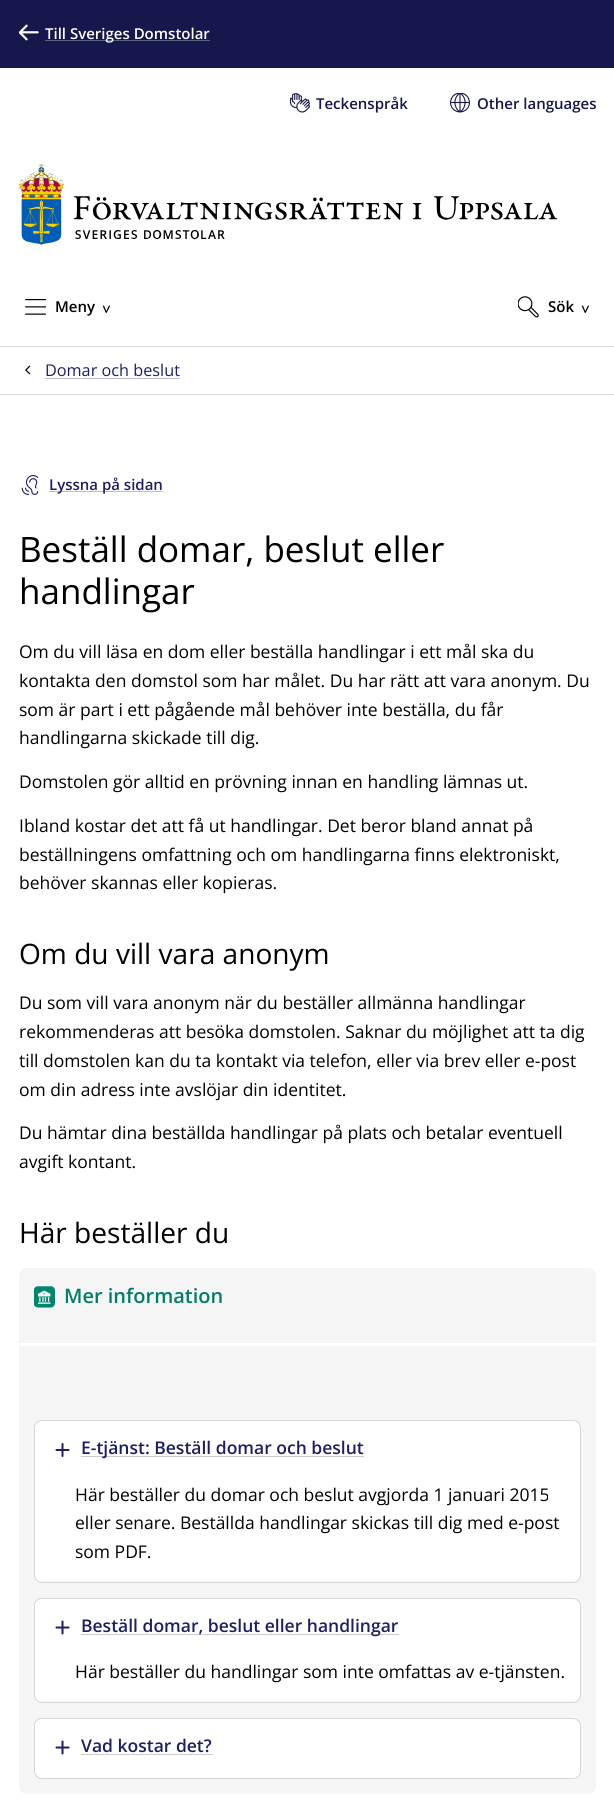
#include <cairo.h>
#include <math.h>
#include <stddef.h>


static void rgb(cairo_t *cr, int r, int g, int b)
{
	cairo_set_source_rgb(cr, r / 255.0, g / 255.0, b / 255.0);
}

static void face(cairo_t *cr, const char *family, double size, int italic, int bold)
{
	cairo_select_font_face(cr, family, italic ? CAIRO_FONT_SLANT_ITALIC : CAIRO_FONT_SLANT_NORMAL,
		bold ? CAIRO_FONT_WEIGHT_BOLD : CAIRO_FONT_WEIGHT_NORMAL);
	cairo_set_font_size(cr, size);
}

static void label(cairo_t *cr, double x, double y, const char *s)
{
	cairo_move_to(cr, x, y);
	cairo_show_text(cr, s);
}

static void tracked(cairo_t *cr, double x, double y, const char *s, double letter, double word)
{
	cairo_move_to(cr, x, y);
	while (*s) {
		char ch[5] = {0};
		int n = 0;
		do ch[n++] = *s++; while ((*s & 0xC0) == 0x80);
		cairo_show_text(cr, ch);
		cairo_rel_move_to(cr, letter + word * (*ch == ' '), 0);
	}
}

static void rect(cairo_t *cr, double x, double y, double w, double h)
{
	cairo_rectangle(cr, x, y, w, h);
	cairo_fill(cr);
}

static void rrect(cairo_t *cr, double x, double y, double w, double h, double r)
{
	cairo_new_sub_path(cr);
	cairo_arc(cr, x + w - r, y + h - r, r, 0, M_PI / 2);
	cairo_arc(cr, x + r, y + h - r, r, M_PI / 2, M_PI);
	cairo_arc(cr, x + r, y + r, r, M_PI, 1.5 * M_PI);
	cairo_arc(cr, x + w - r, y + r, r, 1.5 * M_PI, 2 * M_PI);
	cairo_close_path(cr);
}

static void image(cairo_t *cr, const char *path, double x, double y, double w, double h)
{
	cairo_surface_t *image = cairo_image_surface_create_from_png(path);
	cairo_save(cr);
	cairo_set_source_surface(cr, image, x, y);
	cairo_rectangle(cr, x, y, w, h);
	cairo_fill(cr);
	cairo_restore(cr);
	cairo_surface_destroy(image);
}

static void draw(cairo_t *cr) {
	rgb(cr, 255, 255, 255);
	cairo_paint(cr);
	rgb(cr, 214, 215, 217);
	rect(cr, 0, 346, 614, 1);
	rgb(cr, 21, 23, 77);
	rect(cr, 0, 0, 614, 68);
	image(cr, "image0.png", 19, 24, 20, 17);
	rgb(cr, 91, 93, 130);
	rect(cr, 45, 40, 165, 1);
	face(cr, "Open Sans SemiBold", 15, 0, 0);
	rgb(cr, 255, 255, 255);
	label(cr, 45, 39, "Till Sveriges Domstolar");
	image(cr, "image1.png", 290, 93, 20, 20);
	rgb(cr, 21, 23, 77);
	label(cr, 316, 109, "Teckenspråk");
	image(cr, "image2.png", 450, 93, 20, 20);
	label(cr, 477, 109, "Other languages");
	image(cr, "image3.png", 19, 164, 539, 81);
	image(cr, "image4.png", 25, 299, 21, 16);
	rgb(cr, 0, 0, 0);
	label(cr, 55, 312, "Meny");
	cairo_save(cr);
	cairo_translate(cr, 101, 305);
	cairo_rotate(cr, 90 * M_PI / 180);
	tracked(cr, 0, 0, ">", -3, 0);
	cairo_restore(cr);
	image(cr, "image5.png", 518, 296, 21, 22);
	label(cr, 548, 312, "Sök");
	cairo_save(cr);
	cairo_translate(cr, 580, 305);
	cairo_rotate(cr, 90 * M_PI / 180);
	tracked(cr, 0, 0, ">", -3, 0);
	cairo_restore(cr);
	rgb(cr, 214, 215, 217);
	rect(cr, 0, 394, 614, 1);
	image(cr, "image6.png", 25, 365, 6, 10);
	face(cr, "Open Sans", 16.25, 0, 0);
	rgb(cr, 28, 31, 102);
	label(cr, 45, 376, "Domar och beslut");
	rgb(cr, 187, 188, 209);
	rect(cr, 45, 378, 135, 1);
	image(cr, "image7.png", 21, 475, 18, 20);
	rect(cr, 49, 491, 114, 1);
	face(cr, "Open Sans SemiBold", 15, 0, 0);
	rgb(cr, 28, 31, 102);
	label(cr, 49, 490, "Lyssna på sidan");
	face(cr, "Open Sans", 35, 0, 0);
	rgb(cr, 0, 0, 0);
	label(cr, 19, 562, "Beställ domar, beslut eller");
	label(cr, 19, 604, "handlingar");
	face(cr, "Open Sans", 17.5, 0, 0);
	label(cr, 19, 658, "Om du vill läsa en dom eller beställa handlingar i ett mål ska du");
	label(cr, 19, 687, "kontakta den domstol som har målet. Du har rätt att vara anonym. Du");
	label(cr, 19, 716, "som är part i ett pågående mål behöver inte beställa, du får");
	label(cr, 19, 744, "handlingarna skickade till dig.");
	label(cr, 19, 788, "Domstolen gör alltid en prövning innan en handling lämnas ut.");
	label(cr, 19, 832, "Ibland kostar det att få ut handlingar. Det beror bland annat på");
	label(cr, 19, 861, "beställningens omfattning och om handlingarna finns elektroniskt,");
	label(cr, 19, 889, "behöver skannas eller kopieras.");
	face(cr, "Open Sans", 28.1, 0, 0);
	label(cr, 19, 964, "Om du vill vara anonym");
	face(cr, "Open Sans", 17.5, 0, 0);
	label(cr, 19, 1009, "Du som vill vara anonym när du beställer allmänna handlingar");
	label(cr, 19, 1038, "rekommenderas att besöka domstolen. Saknar du möjlighet att ta dig");
	label(cr, 19, 1067, "till domstolen kan du ta kontakt via telefon, eller via brev eller e-post");
	label(cr, 19, 1096, "om din adress inte avslöjar din identitet.");
	label(cr, 19, 1139, "Du hämtar dina beställda handlingar på plats och betalar eventuell");
	label(cr, 19, 1168, "avgift kontant.");
	face(cr, "Open Sans", 28.1, 0, 0);
	label(cr, 19, 1243, "Här beställer du");
	rgb(cr, 245, 245, 245);
	rrect(cr, 19, 1268, 577, 526, 8);
	cairo_fill(cr);
	image(cr, "image8.png", 34, 1286, 21, 22);
	face(cr, "Open Sans SemiBold", 20, 0, 0);
	rgb(cr, 0, 126, 104);
	label(cr, 64, 1303, "Mer information");
	rgb(cr, 255, 255, 255);
	rect(cr, 19, 1343, 577, 3);
	rrect(cr, 35, 1421, 545, 160, 6);
	cairo_fill(cr);
	rrect(cr, 34.5, 1420.5, 546, 162, 7.5);
	rgb(cr, 214, 215, 217);
	cairo_set_line_width(cr, 1);
	cairo_stroke(cr);
	image(cr, "image9.png", 55, 1443, 15, 14);
	rgb(cr, 202, 202, 204);
	rect(cr, 81, 1456, 283, 1);
	face(cr, "Open Sans SemiBold", 17.5, 0, 0);
	rgb(cr, 28, 31, 102);
	label(cr, 81, 1454, "E-tjänst: Beställ domar och beslut");
	face(cr, "Open Sans", 17.5, 0, 0);
	rgb(cr, 0, 0, 0);
	label(cr, 75, 1501, "Här beställer du domar och beslut avgjorda 1 januari 2015");
	label(cr, 75, 1529, "eller senare. Beställda handlingar skickas till dig med e-post");
	label(cr, 75, 1558, "som PDF.");
	rgb(cr, 255, 255, 255);
	rrect(cr, 35, 1599, 545, 102, 6);
	cairo_fill(cr);
	rrect(cr, 34.5, 1598.5, 546, 104, 7.5);
	rgb(cr, 214, 215, 217);
	cairo_stroke(cr);
	image(cr, "image10.png", 55, 1620, 15, 15);
	rgb(cr, 202, 202, 204);
	rect(cr, 81, 1634, 318, 1);
	face(cr, "Open Sans SemiBold", 17.5, 0, 0);
	rgb(cr, 28, 31, 102);
	label(cr, 81, 1632, "Beställ domar, beslut eller handlingar");
	face(cr, "Open Sans", 17.5, 0, 0);
	rgb(cr, 0, 0, 0);
	label(cr, 75, 1678, "Här beställer du handlingar som inte omfattas av e-tjänsten.");
	rgb(cr, 255, 255, 255);
	rrect(cr, 35, 1719, 545, 59, 6);
	cairo_fill(cr);
	rrect(cr, 34.5, 1718.5, 546, 60, 7.5);
	rgb(cr, 214, 215, 217);
	cairo_stroke(cr);
	image(cr, "image10.png", 55, 1740, 15, 15);
	face(cr, "Open Sans SemiBold", 17.5, 0, 0);
	rgb(cr, 28, 31, 102);
	label(cr, 81, 1752, "Vad kostar det?");
	rgb(cr, 202, 202, 204);
	rect(cr, 81, 1754, 132, 1);
}

int main(void) {
	cairo_surface_t *surface = cairo_image_surface_create(CAIRO_FORMAT_RGB24, 614, 1817);
	cairo_t *cr = cairo_create(surface);
	cairo_font_options_t *options = cairo_font_options_create();
	cairo_font_options_set_hint_metrics(options, CAIRO_HINT_METRICS_OFF);
	cairo_font_options_set_hint_style(options, CAIRO_HINT_STYLE_NONE);
	cairo_set_font_options(cr, options);
	cairo_set_miter_limit(cr, 4);
	draw(cr);
	cairo_surface_write_to_png(surface, "render.png");
	cairo_font_options_destroy(options);
	cairo_destroy(cr);
	cairo_surface_destroy(surface);
	return 0;
}
